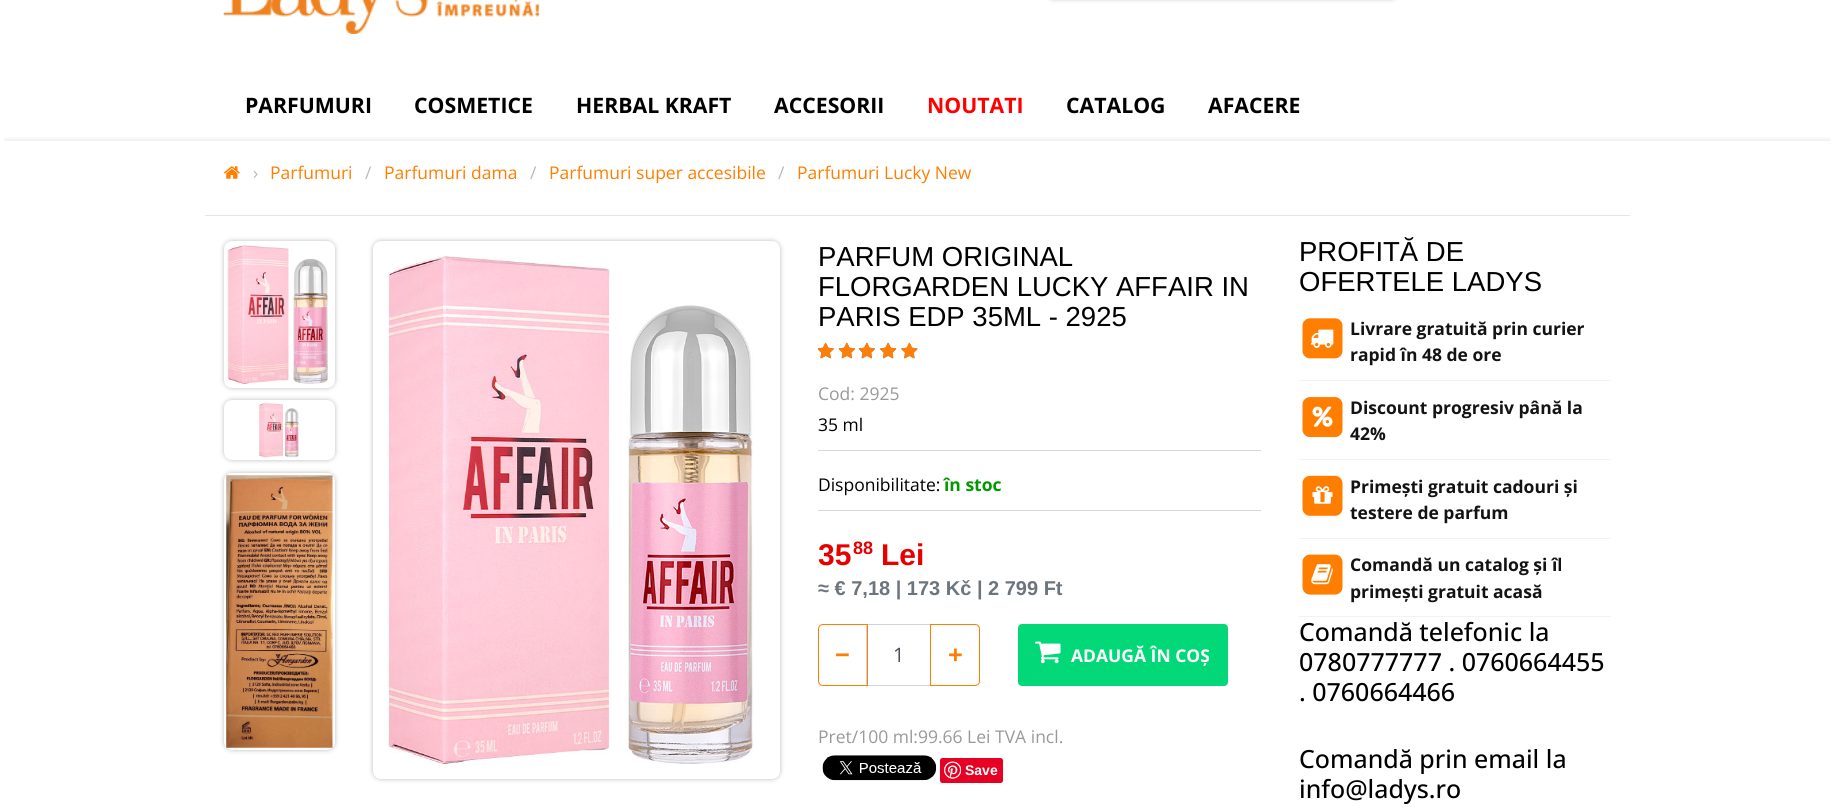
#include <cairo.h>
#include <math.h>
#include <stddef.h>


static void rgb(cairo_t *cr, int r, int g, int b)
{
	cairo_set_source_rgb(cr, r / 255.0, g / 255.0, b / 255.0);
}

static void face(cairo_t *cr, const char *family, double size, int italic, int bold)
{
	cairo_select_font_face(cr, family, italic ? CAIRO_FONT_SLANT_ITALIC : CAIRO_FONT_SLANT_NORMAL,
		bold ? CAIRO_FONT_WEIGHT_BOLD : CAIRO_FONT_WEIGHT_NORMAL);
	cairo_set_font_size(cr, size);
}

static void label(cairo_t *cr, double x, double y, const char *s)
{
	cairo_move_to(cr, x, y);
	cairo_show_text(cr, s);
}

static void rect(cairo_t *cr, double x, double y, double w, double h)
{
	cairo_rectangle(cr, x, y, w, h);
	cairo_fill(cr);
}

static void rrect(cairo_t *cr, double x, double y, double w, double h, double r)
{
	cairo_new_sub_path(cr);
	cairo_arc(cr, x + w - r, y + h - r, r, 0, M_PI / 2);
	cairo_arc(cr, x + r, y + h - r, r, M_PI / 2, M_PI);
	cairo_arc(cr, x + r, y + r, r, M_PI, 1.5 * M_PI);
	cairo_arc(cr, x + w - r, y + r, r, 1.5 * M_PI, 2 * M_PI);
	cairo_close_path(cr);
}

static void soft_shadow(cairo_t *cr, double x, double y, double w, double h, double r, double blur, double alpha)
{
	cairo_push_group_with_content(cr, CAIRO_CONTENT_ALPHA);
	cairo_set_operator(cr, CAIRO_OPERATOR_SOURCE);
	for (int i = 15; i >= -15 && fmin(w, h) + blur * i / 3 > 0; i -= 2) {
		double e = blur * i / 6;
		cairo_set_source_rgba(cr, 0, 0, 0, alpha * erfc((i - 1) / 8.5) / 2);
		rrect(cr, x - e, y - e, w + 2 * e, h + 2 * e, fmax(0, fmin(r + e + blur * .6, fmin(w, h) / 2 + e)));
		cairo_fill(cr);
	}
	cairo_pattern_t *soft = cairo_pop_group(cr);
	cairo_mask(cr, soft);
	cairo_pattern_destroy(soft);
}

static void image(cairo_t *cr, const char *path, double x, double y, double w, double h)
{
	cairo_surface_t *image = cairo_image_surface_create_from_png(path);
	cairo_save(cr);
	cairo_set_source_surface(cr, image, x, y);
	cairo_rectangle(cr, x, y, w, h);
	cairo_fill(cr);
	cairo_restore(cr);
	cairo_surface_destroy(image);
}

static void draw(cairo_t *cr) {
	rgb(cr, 255, 255, 255);
	cairo_paint(cr);
	image(cr, "image0.png", 223, 0, 317, 34);
	rgb(cr, 0, 0, 0);
	soft_shadow(cr, 1049, -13, 347, 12, 5, 2.5, 0.27);
	face(cr, "Open Sans", 21.25, 0, 1);
	rgb(cr, 0, 0, 0);
	label(cr, 245, 113, "PARFUMURI");
	label(cr, 414, 113, "COSMETICE");
	label(cr, 576, 113, "HERBAL KRAFT");
	label(cr, 774, 113, "ACCESORII");
	rgb(cr, 255, 0, 0);
	label(cr, 927, 113, "NOUTATI");
	rgb(cr, 0, 0, 0);
	label(cr, 1066, 113, "CATALOG");
	label(cr, 1208, 113, "AFACERE");
	cairo_save(cr);
	cairo_rectangle(cr, 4, 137, 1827, 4);
	cairo_clip(cr);
	rgb(cr, 0, 0, 0);
	soft_shadow(cr, 5, 140, 1825, 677, 0, 3, 0.1);
	cairo_restore(cr);
	rgb(cr, 230, 230, 230);
	rect(cr, 205, 215, 1425, 1);
	image(cr, "image1.png", 224, 166, 16, 13);
	face(cr, "Open Sans", 17.5, 0, 0);
	rgb(cr, 186, 186, 186);
	label(cr, 253, 179, "›");
	rgb(cr, 255, 126, 0);
	label(cr, 270, 179, "Parfumuri");
	rgb(cr, 186, 186, 186);
	label(cr, 365, 179, "/");
	rgb(cr, 255, 126, 0);
	label(cr, 384, 179, "Parfumuri dama");
	rgb(cr, 186, 186, 186);
	label(cr, 530, 179, "/");
	rgb(cr, 255, 126, 0);
	label(cr, 549, 179, "Parfumuri super accesibile");
	rgb(cr, 186, 186, 186);
	label(cr, 778, 179, "/");
	rgb(cr, 255, 126, 0);
	label(cr, 797, 179, "Parfumuri Lucky New");
	rgb(cr, 0, 0, 0);
	soft_shadow(cr, 224, 241, 111, 147, 8, 2.5, 0.27);
	rgb(cr, 255, 255, 255);
	rrect(cr, 224, 241, 111, 147, 8);
	cairo_fill(cr);
	image(cr, "image2.png", 227, 245, 101, 139);
	rgb(cr, 0, 0, 0);
	soft_shadow(cr, 224, 400, 111, 60, 8, 2.5, 0.27);
	rgb(cr, 255, 255, 255);
	rrect(cr, 224, 400, 111, 60, 8);
	cairo_fill(cr);
	image(cr, "image3.png", 259, 402, 40, 56);
	rgb(cr, 0, 0, 0);
	soft_shadow(cr, 224, 473, 111, 277, 8, 2.5, 0.27);
	rgb(cr, 255, 255, 255);
	rrect(cr, 224, 473, 111, 277, 8);
	cairo_fill(cr);
	image(cr, "image4.png", 226, 475, 107, 273);
	rgb(cr, 0, 0, 0);
	soft_shadow(cr, 373, 241, 407, 538, 8, 2.5, 0.27);
	rgb(cr, 255, 255, 255);
	rrect(cr, 373, 241, 407, 538, 8);
	cairo_fill(cr);
	image(cr, "image5.png", 388, 255, 366, 509);
	face(cr, "Liberation Sans", 27.5, 0, 0);
	rgb(cr, 0, 0, 0);
	label(cr, 818, 266, "PARFUM ORIGINAL");
	label(cr, 818, 296, "FLORGARDEN LUCKY AFFAIR IN");
	label(cr, 818, 326, "PARIS EDP 35ML - 2925");
	image(cr, "image6.png", 818, 342, 16, 17);
	image(cr, "image7.png", 838, 342, 17, 17);
	image(cr, "image7.png", 858, 342, 17, 17);
	image(cr, "image8.png", 880, 342, 17, 17);
	image(cr, "image9.png", 901, 342, 17, 17);
	image(cr, "image10.png", 818, 342, 16, 17);
	image(cr, "image11.png", 838, 342, 17, 17);
	image(cr, "image11.png", 858, 342, 17, 17);
	image(cr, "image12.png", 880, 342, 17, 17);
	image(cr, "image13.png", 901, 342, 17, 17);
	face(cr, "Open Sans", 17.5, 0, 0);
	rgb(cr, 153, 153, 153);
	label(cr, 818, 400, "Cod: 2925");
	rgb(cr, 215, 215, 215);
	rect(cr, 818, 450, 443, 1);
	rgb(cr, 0, 0, 0);
	label(cr, 818, 431, "35 ml");
	rgb(cr, 215, 215, 215);
	rect(cr, 818, 510, 443, 1);
	rgb(cr, 0, 0, 0);
	label(cr, 818, 491, "Disponibilitate:");
	face(cr, "Open Sans", 17.5, 0, 1);
	rgb(cr, 0, 153, 0);
	label(cr, 944, 491, "în stoc");
	face(cr, "Liberation Sans", 30, 0, 1);
	rgb(cr, 230, 0, 0);
	label(cr, 818, 565, "35");
	face(cr, "Liberation Sans", 18, 0, 1);
	label(cr, 853, 554, "88");
	face(cr, "Liberation Sans", 30, 0, 1);
	label(cr, 881, 565, "Lei");
	cairo_save(cr);
	cairo_rectangle(cr, 818, 243, 443, 543);
	cairo_clip(cr);
	face(cr, "Liberation Sans", 20, 0, 1);
	rgb(cr, 108, 117, 125);
	label(cr, 818, 595, "≈ € 7,18 | 173 Kč | 2 799 Ft");
	cairo_restore(cr);
	cairo_rectangle(cr, 866.5, 624.5, 64, 61);
	rgb(cr, 206, 212, 218);
	cairo_set_line_width(cr, 1);
	cairo_stroke(cr);
	cairo_new_path(cr);
	cairo_move_to(cr, 823, 624.5);
	cairo_line_to(cr, 867.5, 624.5);
	cairo_line_to(cr, 867.5, 685.5);
	cairo_line_to(cr, 823, 685.5);
	cairo_curve_to(cr, 820.5, 685.5, 818.5, 683.5, 818.5, 681);
	cairo_line_to(cr, 818.5, 629);
	cairo_curve_to(cr, 818.5, 626.5, 820.5, 624.5, 823, 624.5);
	cairo_close_path(cr);
	rgb(cr, 255, 126, 0);
	cairo_stroke(cr);
	face(cr, "Open Sans", 26, 0, 1);
	label(cr, 835, 664, "−");
	face(cr, "Open Sans", 20, 0, 0);
	rgb(cr, 73, 80, 87);
	label(cr, 893, 662, "1");
	cairo_new_path(cr);
	cairo_move_to(cr, 930.5, 624.5);
	cairo_line_to(cr, 975, 624.5);
	cairo_curve_to(cr, 977.5, 624.5, 979.5, 626.5, 979.5, 629);
	cairo_line_to(cr, 979.5, 681);
	cairo_curve_to(cr, 979.5, 683.5, 977.5, 685.5, 975, 685.5);
	cairo_line_to(cr, 930.5, 685.5);
	cairo_close_path(cr);
	rgb(cr, 255, 126, 0);
	cairo_stroke(cr);
	face(cr, "Open Sans", 26, 0, 1);
	label(cr, 948, 664, "+");
	rgb(cr, 3, 216, 120);
	rrect(cr, 1018, 624, 210, 62, 4);
	cairo_fill(cr);
	image(cr, "image14.png", 1035, 641, 26, 23);
	face(cr, "Open Sans", 17.5, 0, 1);
	rgb(cr, 255, 255, 255);
	label(cr, 1071, 662, "ADAUGĂ ÎN COȘ");
	face(cr, "Open Sans", 17.5, 0, 0);
	rgb(cr, 153, 153, 153);
	label(cr, 818, 743, "Pret/100 ml:99.66 Lei TVA incl.");
	image(cr, "image15.png", 822, 755, 115, 26);
	rgb(cr, 230, 0, 35);
	rrect(cr, 940, 758, 63, 25, 2.5);
	cairo_fill(cr);
	image(cr, "image16.png", 944, 761, 17, 18);
	face(cr, "Liberation Sans", 14, 0, 1);
	rgb(cr, 255, 255, 255);
	label(cr, 965, 775, "Save");
	face(cr, "Liberation Sans", 27.5, 0, 0);
	rgb(cr, 0, 0, 0);
	label(cr, 1299, 261, "PROFITĂ DE");
	label(cr, 1299, 291, "OFERTELE LADYS");
	rgb(cr, 242, 242, 242);
	rect(cr, 1299, 380, 312, 1);
	image(cr, "image17.png", 1302, 318, 41, 41);
	image(cr, "image18.png", 1310, 329, 24, 19);
	face(cr, "Open Sans", 17.5, 0, 1);
	rgb(cr, 19, 19, 19);
	label(cr, 1350, 335, "Livrare gratuită prin curier");
	label(cr, 1350, 361, "rapid în 48 de ore");
	rgb(cr, 242, 242, 242);
	rect(cr, 1299, 459, 312, 1);
	image(cr, "image19.png", 1302, 397, 41, 41);
	image(cr, "image20.png", 1312, 406, 21, 21);
	rgb(cr, 19, 19, 19);
	label(cr, 1350, 414, "Discount progresiv până la");
	label(cr, 1350, 440, "42%");
	rgb(cr, 242, 242, 242);
	rect(cr, 1299, 538, 312, 1);
	image(cr, "image21.png", 1302, 475, 41, 41);
	image(cr, "image22.png", 1312, 486, 21, 18);
	rgb(cr, 19, 19, 19);
	label(cr, 1350, 493, "Primești gratuit cadouri și");
	label(cr, 1350, 519, "testere de parfum");
	rgb(cr, 242, 242, 242);
	rect(cr, 1299, 616, 312, 1);
	image(cr, "image23.png", 1302, 554, 41, 41);
	image(cr, "image24.png", 1311, 564, 22, 21);
	rgb(cr, 19, 19, 19);
	label(cr, 1350, 571, "Comandă un catalog și îl");
	label(cr, 1350, 598, "primești gratuit acasă");
	face(cr, "Open Sans Medium", 25, 0, 0);
	rgb(cr, 0, 0, 0);
	label(cr, 1299, 641, "Comandă telefonic la");
	label(cr, 1299, 671, "0780777777 . 0760664455");
	label(cr, 1299, 701, ". 0760664466");
	label(cr, 1299, 768, "Comandă prin email la");
	label(cr, 1299, 798, "info@ladys.ro");
}

int main(void) {
	cairo_surface_t *surface = cairo_image_surface_create(CAIRO_FORMAT_RGB24, 1834, 808);
	cairo_t *cr = cairo_create(surface);
	cairo_font_options_t *options = cairo_font_options_create();
	cairo_font_options_set_hint_metrics(options, CAIRO_HINT_METRICS_OFF);
	cairo_font_options_set_hint_style(options, CAIRO_HINT_STYLE_NONE);
	cairo_set_font_options(cr, options);
	cairo_set_miter_limit(cr, 4);
	draw(cr);
	cairo_surface_write_to_png(surface, "render.png");
	cairo_font_options_destroy(options);
	cairo_destroy(cr);
	cairo_surface_destroy(surface);
	return 0;
}
